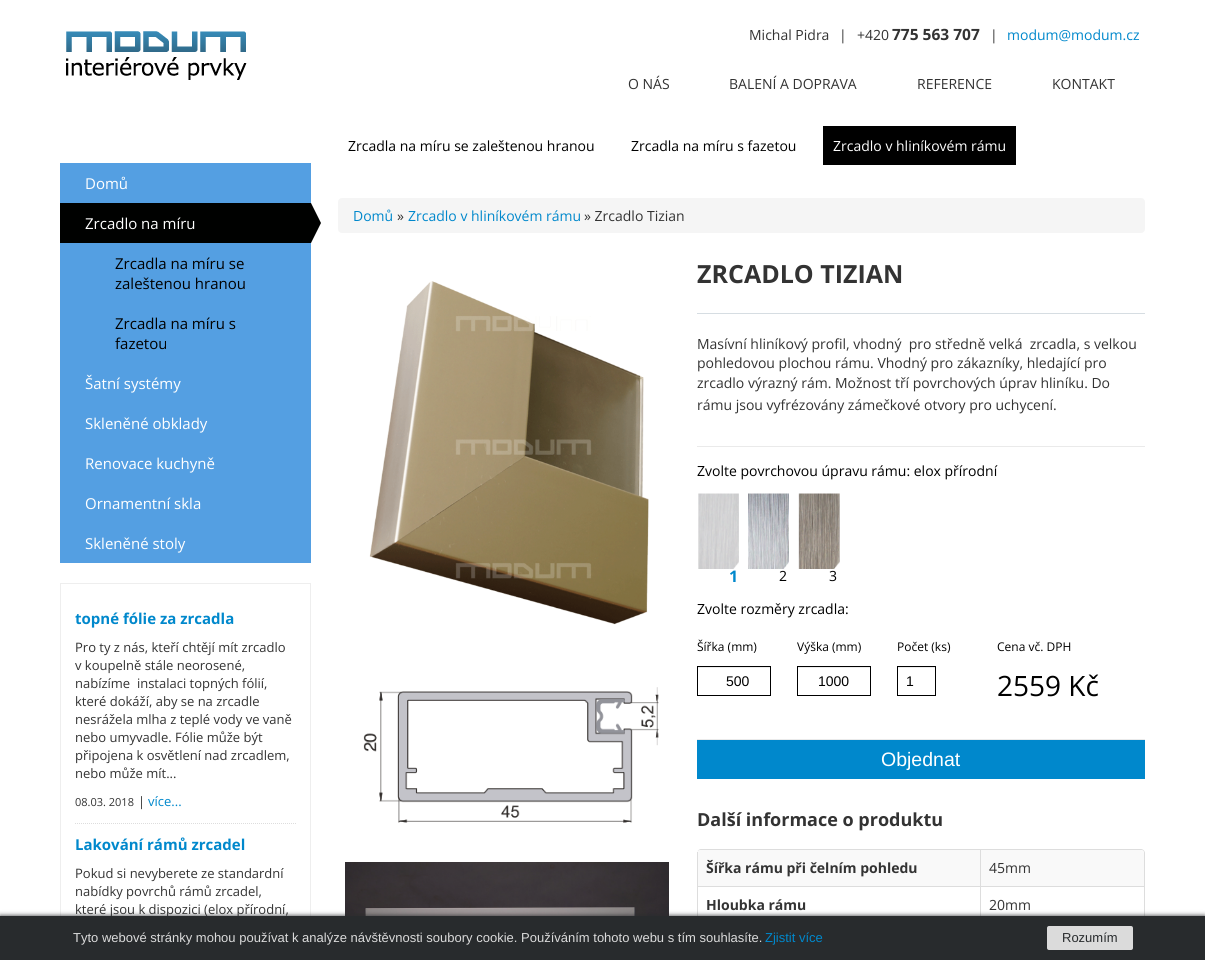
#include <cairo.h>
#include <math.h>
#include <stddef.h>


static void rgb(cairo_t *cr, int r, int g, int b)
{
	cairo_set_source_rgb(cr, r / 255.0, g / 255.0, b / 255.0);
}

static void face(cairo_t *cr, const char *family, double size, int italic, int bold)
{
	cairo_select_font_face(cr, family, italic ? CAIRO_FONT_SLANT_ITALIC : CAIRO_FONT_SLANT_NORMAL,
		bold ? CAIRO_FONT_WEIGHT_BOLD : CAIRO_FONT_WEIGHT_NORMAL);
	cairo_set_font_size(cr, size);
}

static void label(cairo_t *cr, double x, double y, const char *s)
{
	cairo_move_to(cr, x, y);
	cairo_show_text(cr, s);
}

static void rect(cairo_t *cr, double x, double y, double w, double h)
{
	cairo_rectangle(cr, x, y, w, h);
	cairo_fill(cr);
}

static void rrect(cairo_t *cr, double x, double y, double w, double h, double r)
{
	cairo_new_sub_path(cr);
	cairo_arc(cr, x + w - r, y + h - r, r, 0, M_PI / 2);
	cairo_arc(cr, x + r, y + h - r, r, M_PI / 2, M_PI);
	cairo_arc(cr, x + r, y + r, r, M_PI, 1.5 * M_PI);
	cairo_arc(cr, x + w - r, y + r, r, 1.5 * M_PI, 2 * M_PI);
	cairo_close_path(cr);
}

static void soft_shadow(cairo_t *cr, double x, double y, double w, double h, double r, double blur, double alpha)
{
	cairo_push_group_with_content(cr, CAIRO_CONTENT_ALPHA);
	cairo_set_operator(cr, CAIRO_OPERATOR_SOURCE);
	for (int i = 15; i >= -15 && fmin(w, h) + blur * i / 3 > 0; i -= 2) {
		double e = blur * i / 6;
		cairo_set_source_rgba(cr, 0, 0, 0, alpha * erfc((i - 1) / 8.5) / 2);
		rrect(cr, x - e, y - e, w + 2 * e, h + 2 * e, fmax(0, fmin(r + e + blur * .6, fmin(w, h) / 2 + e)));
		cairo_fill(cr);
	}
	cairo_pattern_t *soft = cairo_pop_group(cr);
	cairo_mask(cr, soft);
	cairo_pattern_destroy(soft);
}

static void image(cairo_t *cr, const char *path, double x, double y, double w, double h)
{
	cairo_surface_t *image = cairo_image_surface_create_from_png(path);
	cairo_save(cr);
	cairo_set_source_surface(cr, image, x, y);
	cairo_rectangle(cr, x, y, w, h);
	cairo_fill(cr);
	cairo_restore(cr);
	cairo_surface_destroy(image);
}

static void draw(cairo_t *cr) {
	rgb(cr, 255, 255, 255);
	cairo_paint(cr);
	image(cr, "image0.png", 66, 31, 181, 49);
	face(cr, "Open Sans", 14, 0, 0);
	rgb(cr, 51, 51, 51);
	label(cr, 749, 40, "Michal Pidra");
	label(cr, 839, 40, "|");
	label(cr, 857, 40, "+420");
	face(cr, "Open Sans", 15.5, 0, 1);
	label(cr, 892, 40, "775 563 707");
	face(cr, "Open Sans", 14, 0, 0);
	label(cr, 990, 40, "|");
	rgb(cr, 0, 136, 204);
	label(cr, 1007, 40, "modum@modum.cz");
	rgb(cr, 51, 51, 51);
	label(cr, 628, 89, "O NÁS");
	label(cr, 729, 89, "BALENÍ A DOPRAVA");
	label(cr, 917, 89, "REFERENCE");
	label(cr, 1052, 89, "KONTAKT");
	rgb(cr, 84, 159, 226);
	rect(cr, 60, 163, 251, 400);
	face(cr, "Open Sans", 15, 0, 0);
	rgb(cr, 255, 255, 255);
	label(cr, 85, 189, "Domů");
	rgb(cr, 0, 1, 0);
	rect(cr, 60, 203, 251, 40);
	rgb(cr, 255, 255, 255);
	label(cr, 85, 229, "Zrcadlo na míru");
	rgb(cr, 0, 1, 0);
	cairo_new_path(cr);
	cairo_move_to(cr, 311, 243);
	cairo_line_to(cr, 311, 203);
	cairo_line_to(cr, 321, 223);
	cairo_close_path(cr);
	cairo_fill(cr);
	rgb(cr, 0, 0, 0);
	label(cr, 115, 269, "Zrcadla na míru se");
	label(cr, 115, 289, "zaleštenou hranou");
	label(cr, 115, 329, "Zrcadla na míru s");
	label(cr, 115, 349, "fazetou");
	rgb(cr, 255, 255, 255);
	label(cr, 85, 389, "Šatní systémy");
	label(cr, 85, 429, "Skleněné obklady");
	label(cr, 85, 469, "Renovace kuchyně");
	label(cr, 85, 509, "Ornamentní skla");
	label(cr, 85, 549, "Skleněné stoly");
	cairo_rectangle(cr, 60.5, 583.5, 250, 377);
	rgb(cr, 238, 238, 238);
	cairo_set_line_width(cr, 1);
	cairo_stroke(cr);
	cairo_new_path(cr);
	cairo_move_to(cr, 75, 823.5);
	cairo_line_to(cr, 296, 823.5);
	rgb(cr, 221, 221, 221);
	cairo_set_dash(cr, (double[]){1, 1}, 2, 0);
	cairo_stroke(cr);
	face(cr, "Open Sans", 15, 0, 1);
	rgb(cr, 0, 136, 204);
	label(cr, 75, 624, "topné fólie za zrcadla");
	face(cr, "Open Sans", 13, 0, 0);
	rgb(cr, 51, 51, 51);
	label(cr, 75, 652, "Pro ty z nás, kteří chtějí mít zrcadlo");
	label(cr, 75, 670, "v koupelně stále neorosené,");
	label(cr, 75, 688, "nabízíme  instalaci topných fólií,");
	label(cr, 75, 706, "které dokáží, aby se na zrcadle");
	label(cr, 75, 724, "nesrážela mlha z teplé vody ve vaně");
	label(cr, 75, 742, "nebo umyvadle. Fólie může být");
	label(cr, 75, 760, "připojena k osvětlení nad zrcadlem,");
	label(cr, 75, 778, "nebo může mít...");
	face(cr, "Open Sans", 11, 0, 0);
	label(cr, 75, 806, "08.03. 2018");
	face(cr, "Open Sans", 13, 0, 0);
	label(cr, 138, 806, "|");
	rgb(cr, 0, 136, 204);
	label(cr, 148, 806, "více...");
	face(cr, "Open Sans", 15, 0, 1);
	label(cr, 75, 850, "Lakování rámů zrcadel");
	face(cr, "Open Sans", 13, 0, 0);
	rgb(cr, 51, 51, 51);
	label(cr, 75, 878, "Pokud si nevyberete ze standardní");
	label(cr, 75, 896, "nabídky povrchů rámů zrcadel,");
	label(cr, 75, 914, "které jsou k dispozici (elox přírodní,");
	face(cr, "Open Sans", 14, 0, 0);
	rgb(cr, 0, 0, 0);
	label(cr, 348, 151, "Zrcadla na míru se zaleštenou hranou");
	label(cr, 631, 151, "Zrcadla na míru s fazetou");
	rect(cr, 823, 126, 193, 39);
	rgb(cr, 255, 255, 255);
	label(cr, 833, 151, "Zrcadlo v hliníkovém rámu");
	rgb(cr, 245, 245, 245);
	rrect(cr, 338, 198, 807, 35, 4);
	cairo_fill(cr);
	rgb(cr, 0, 136, 204);
	label(cr, 353, 221, "Domů");
	rgb(cr, 51, 51, 51);
	label(cr, 397, 221, "»");
	rgb(cr, 0, 136, 204);
	label(cr, 408, 221, "Zrcadlo v hliníkovém rámu");
	rgb(cr, 51, 51, 51);
	label(cr, 584, 221, "» Zrcadlo Tizian");
	image(cr, "image1.png", 369, 281, 280, 344);
	image(cr, "image2.png", 363, 687, 296, 136);
	image(cr, "image3.png", 345, 862, 324, 54);
	face(cr, "Open Sans", 25, 0, 1);
	label(cr, 697, 283, "ZRCADLO TIZIAN");
	rgb(cr, 214, 221, 226);
	rect(cr, 697, 313, 448, 1);
	face(cr, "Open Sans", 14, 0, 0);
	rgb(cr, 51, 51, 51);
	label(cr, 697, 349, "Masívní hliníkový profil, vhodný  pro středně velká  zrcadla, s velkou");
	label(cr, 697, 368, "pohledovou plochou rámu. Vhodný pro zákazníky, hledající pro");
	label(cr, 697, 388, "zrcadlo výrazný rám. Možnost tří povrchových úprav hliníku. Do");
	label(cr, 697, 410, "rámu jsou vyfrézovány zámečkové otvory pro uchycení.");
	rgb(cr, 234, 234, 234);
	rect(cr, 697, 446, 448, 1);
	rect(cr, 697, 739, 448, 1);
	rgb(cr, 0, 0, 0);
	label(cr, 697, 476, "Zvolte povrchovou úpravu rámu: elox přírodní");
	image(cr, "image4.png", 698, 493, 41, 76);
	face(cr, "Open Sans", 16, 0, 1);
	rgb(cr, 0, 136, 204);
	label(cr, 729, 582, "1");
	image(cr, "image5.png", 748, 493, 41, 76);
	face(cr, "Open Sans", 14, 0, 0);
	rgb(cr, 0, 0, 0);
	label(cr, 779, 581, "2");
	image(cr, "image6.png", 798, 493, 42, 76);
	label(cr, 829, 581, "3");
	label(cr, 697, 614, "Zvolte rozměry zrcadla:");
	face(cr, "Open Sans", 12, 0, 0);
	label(cr, 697, 651, "Šířka (mm)");
	rgb(cr, 236, 236, 236);
	rect(cr, 698, 667, 72, 1);
	cairo_rectangle(cr, 697.5, 666.5, 73, 29);
	rgb(cr, 0, 0, 0);
	cairo_set_dash(cr, NULL, 0, 0);
	cairo_stroke(cr);
	face(cr, "Liberation Sans", 14, 0, 0);
	label(cr, 726, 686, "500");
	face(cr, "Open Sans", 12, 0, 0);
	label(cr, 797, 651, "Výška (mm)");
	rgb(cr, 236, 236, 236);
	rect(cr, 798, 667, 72, 1);
	cairo_rectangle(cr, 797.5, 666.5, 73, 29);
	rgb(cr, 0, 0, 0);
	cairo_stroke(cr);
	face(cr, "Liberation Sans", 14, 0, 0);
	label(cr, 818, 686, "1000");
	face(cr, "Open Sans", 12, 0, 0);
	label(cr, 897, 651, "Počet (ks)");
	rgb(cr, 236, 236, 236);
	rect(cr, 898, 667, 37, 1);
	cairo_rectangle(cr, 897.5, 666.5, 38, 29);
	rgb(cr, 0, 0, 0);
	cairo_stroke(cr);
	face(cr, "Liberation Sans", 14, 0, 0);
	label(cr, 906, 686, "1");
	face(cr, "Open Sans", 12, 0, 0);
	label(cr, 997, 651, "Cena vč. DPH");
	face(cr, "Open Sans", 28, 0, 0);
	label(cr, 997, 696, "2559 Kč");
	rgb(cr, 0, 136, 204);
	rect(cr, 697, 740, 448, 39);
	face(cr, "Liberation Sans", 19.5, 0, 0);
	rgb(cr, 255, 255, 255);
	label(cr, 881, 766, "Objednat");
	face(cr, "Open Sans", 18, 0, 1);
	rgb(cr, 51, 51, 51);
	label(cr, 697, 826, "Další informace o produktu");
	rgb(cr, 221, 221, 221);
	cairo_set_fill_rule(cr, CAIRO_FILL_RULE_EVEN_ODD);
	cairo_new_path(cr);
	cairo_move_to(cr, 701, 849);
	cairo_line_to(cr, 1141, 849);
	cairo_curve_to(cr, 1143, 849, 1145, 851, 1145, 853);
	cairo_line_to(cr, 1145, 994);
	cairo_curve_to(cr, 1145, 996, 1143, 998, 1141, 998);
	cairo_line_to(cr, 701, 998);
	cairo_curve_to(cr, 699, 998, 697, 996, 697, 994);
	cairo_line_to(cr, 697, 853);
	cairo_curve_to(cr, 697, 851, 699, 849, 701, 849);
	cairo_close_path(cr);
	cairo_move_to(cr, 701, 850);
	cairo_line_to(cr, 1141, 850);
	cairo_curve_to(cr, 1143, 850, 1144, 851, 1144, 853);
	cairo_line_to(cr, 1144, 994);
	cairo_curve_to(cr, 1144, 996, 1143, 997, 1141, 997);
	cairo_line_to(cr, 701, 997);
	cairo_curve_to(cr, 699, 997, 697, 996, 697, 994);
	cairo_line_to(cr, 697, 853);
	cairo_curve_to(cr, 697, 851, 699, 850, 701, 850);
	cairo_close_path(cr);
	cairo_fill(cr);
	rgb(cr, 249, 249, 249);
	cairo_new_path(cr);
	cairo_move_to(cr, 701, 850);
	cairo_line_to(cr, 980, 850);
	cairo_line_to(cr, 980, 886);
	cairo_line_to(cr, 697, 886);
	cairo_line_to(cr, 697, 854);
	cairo_curve_to(cr, 697, 852, 699, 850, 701, 850);
	cairo_close_path(cr);
	cairo_fill(cr);
	rgb(cr, 221, 221, 221);
	rect(cr, 697, 852, 1, 34);
	face(cr, "Open Sans", 14, 0, 1);
	rgb(cr, 51, 51, 51);
	label(cr, 706, 873, "Šířka rámu při čelním pohledu");
	rgb(cr, 249, 249, 249);
	cairo_new_path(cr);
	cairo_move_to(cr, 980, 850);
	cairo_line_to(cr, 1140, 850);
	cairo_curve_to(cr, 1142, 850, 1144, 852, 1144, 854);
	cairo_line_to(cr, 1144, 886);
	cairo_line_to(cr, 980, 886);
	cairo_close_path(cr);
	cairo_fill(cr);
	rgb(cr, 221, 221, 221);
	rect(cr, 980, 850, 1, 36);
	face(cr, "Open Sans", 14, 0, 0);
	rgb(cr, 51, 51, 51);
	label(cr, 989, 873, "45mm");
	rgb(cr, 221, 221, 221);
	rect(cr, 697, 886, 447, 1);
	rect(cr, 697, 886, 1, 37);
	face(cr, "Open Sans", 14, 0, 1);
	rgb(cr, 51, 51, 51);
	label(cr, 706, 910, "Hloubka rámu");
	rgb(cr, 221, 221, 221);
	rect(cr, 980, 886, 1, 37);
	face(cr, "Open Sans", 14, 0, 0);
	rgb(cr, 51, 51, 51);
	label(cr, 989, 910, "20mm");
	rgb(cr, 40, 43, 45);
	soft_shadow(cr, 0, 916, 1205, 44, 0, 2.5, 1);
	rgb(cr, 40, 43, 45);
	rect(cr, 0, 916, 1205, 44);
	face(cr, "Liberation Sans", 13, 0, 0);
	rgb(cr, 219, 219, 219);
	label(cr, 73, 942, "Tyto webové stránky mohou používat k analýze návštěvnosti soubory cookie. Používáním tohoto webu s tím souhlasíte.");
	rgb(cr, 0, 136, 204);
	label(cr, 765, 942, "Zjistit více");
	rgb(cr, 219, 219, 219);
	rrect(cr, 1047, 926, 86, 24, 2);
	cairo_fill(cr);
	rgb(cr, 40, 43, 45);
	label(cr, 1062, 942, "Rozumím");
}

int main(void) {
	cairo_surface_t *surface = cairo_image_surface_create(CAIRO_FORMAT_RGB24, 1205, 960);
	cairo_t *cr = cairo_create(surface);
	cairo_font_options_t *options = cairo_font_options_create();
	cairo_font_options_set_hint_metrics(options, CAIRO_HINT_METRICS_OFF);
	cairo_font_options_set_hint_style(options, CAIRO_HINT_STYLE_NONE);
	cairo_set_font_options(cr, options);
	cairo_set_miter_limit(cr, 4);
	draw(cr);
	cairo_surface_write_to_png(surface, "render.png");
	cairo_font_options_destroy(options);
	cairo_destroy(cr);
	cairo_surface_destroy(surface);
	return 0;
}
